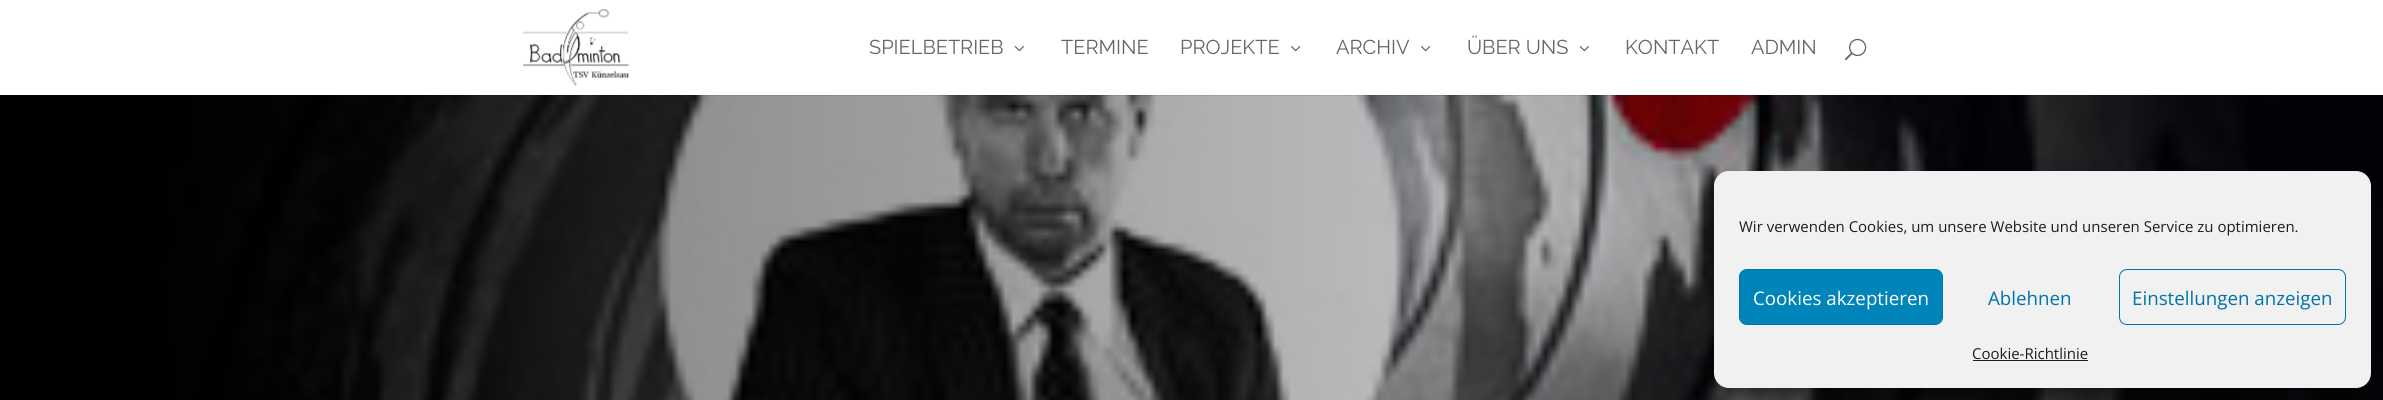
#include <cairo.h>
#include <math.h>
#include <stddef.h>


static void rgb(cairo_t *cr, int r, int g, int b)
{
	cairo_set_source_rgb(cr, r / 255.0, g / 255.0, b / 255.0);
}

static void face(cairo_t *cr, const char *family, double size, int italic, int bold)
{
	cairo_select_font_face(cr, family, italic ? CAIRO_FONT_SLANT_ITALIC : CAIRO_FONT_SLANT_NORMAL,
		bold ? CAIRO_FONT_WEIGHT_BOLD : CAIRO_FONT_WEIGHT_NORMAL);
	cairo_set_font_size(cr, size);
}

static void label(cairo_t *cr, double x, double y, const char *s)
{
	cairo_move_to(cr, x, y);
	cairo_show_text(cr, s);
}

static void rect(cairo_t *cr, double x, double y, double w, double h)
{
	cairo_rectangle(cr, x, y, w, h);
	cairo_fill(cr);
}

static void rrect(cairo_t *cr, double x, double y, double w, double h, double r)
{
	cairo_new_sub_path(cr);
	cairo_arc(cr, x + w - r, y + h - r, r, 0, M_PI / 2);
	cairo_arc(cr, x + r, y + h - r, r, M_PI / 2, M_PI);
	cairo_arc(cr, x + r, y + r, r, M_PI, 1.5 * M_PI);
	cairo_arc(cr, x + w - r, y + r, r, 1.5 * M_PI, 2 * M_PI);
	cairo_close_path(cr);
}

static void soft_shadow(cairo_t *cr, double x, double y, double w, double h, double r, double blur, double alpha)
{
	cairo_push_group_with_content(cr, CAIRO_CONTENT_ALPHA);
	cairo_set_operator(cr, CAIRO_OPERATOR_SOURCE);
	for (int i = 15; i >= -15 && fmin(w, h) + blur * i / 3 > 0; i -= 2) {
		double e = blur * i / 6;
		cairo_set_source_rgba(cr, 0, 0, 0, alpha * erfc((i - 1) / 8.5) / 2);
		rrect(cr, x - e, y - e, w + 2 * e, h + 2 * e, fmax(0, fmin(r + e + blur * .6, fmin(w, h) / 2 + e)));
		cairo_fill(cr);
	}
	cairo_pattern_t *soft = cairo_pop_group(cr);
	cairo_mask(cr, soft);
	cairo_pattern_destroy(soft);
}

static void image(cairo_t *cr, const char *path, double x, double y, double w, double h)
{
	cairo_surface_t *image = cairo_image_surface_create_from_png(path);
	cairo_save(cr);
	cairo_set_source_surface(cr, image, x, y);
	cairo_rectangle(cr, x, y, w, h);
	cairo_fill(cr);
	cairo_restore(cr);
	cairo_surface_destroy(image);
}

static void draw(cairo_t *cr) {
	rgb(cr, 255, 255, 255);
	cairo_paint(cr);
	image(cr, "image4.png", 0, 95, 2383, 305);
	cairo_set_source_rgba(cr, 0, 0, 0, 0.1);
	cairo_new_path(cr);
	cairo_move_to(cr, 0, 95);
	cairo_line_to(cr, 0, 96);
	cairo_line_to(cr, 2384, 96);
	cairo_line_to(cr, 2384, 1);
	cairo_line_to(cr, 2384, 95);
	cairo_close_path(cr);
	cairo_fill(cr);
	image(cr, "image0.png", 523, 9, 107, 77);
	face(cr, "Raleway", 20, 0, 0);
	rgb(cr, 102, 102, 102);
	label(cr, 869, 54, "SPIELBETRIEB");
	image(cr, "image1.png", 1014, 46, 10, 6);
	label(cr, 1061, 54, "TERMINE");
	label(cr, 1180, 54, "PROJEKTE");
	image(cr, "image2.png", 1291, 46, 10, 6);
	label(cr, 1336, 54, "ARCHIV");
	image(cr, "image2.png", 1421, 46, 10, 6);
	label(cr, 1467, 54, "ÜBER UNS");
	image(cr, "image1.png", 1579, 46, 10, 6);
	label(cr, 1625, 54, "KONTAKT");
	label(cr, 1751, 54, "ADMIN");
	image(cr, "image3.png", 1845, 38, 22, 23);
	rgb(cr, 0, 0, 0);
	soft_shadow(cr, 1714, 179, 657, 216, 15, 4, 0.23);
	soft_shadow(cr, 1714, 184, 657, 216, 15, 12.5, 0.19);
	rgb(cr, 241, 241, 241);
	rrect(cr, 1714, 171, 657, 217, 15);
	cairo_fill(cr);
	face(cr, "Open Sans", 15, 0, 0);
	rgb(cr, 25, 30, 35);
	label(cr, 1739, 232, "Wir verwenden Cookies, um unsere Website und unseren Service zu optimieren.");
	rgb(cr, 0, 133, 186);
	rrect(cr, 1739.5, 269.5, 203, 55, 7.5);
	cairo_fill_preserve(cr);
	rgb(cr, 0, 115, 170);
	cairo_set_line_width(cr, 1);
	cairo_stroke(cr);
	face(cr, "Open Sans", 18.75, 0, 0);
	rgb(cr, 255, 255, 255);
	label(cr, 1753, 305, "Cookies akzeptieren");
	rgb(cr, 0, 115, 170);
	label(cr, 1988, 305, "Ablehnen");
	rrect(cr, 2119.5, 269.5, 226, 55, 7.5);
	cairo_stroke(cr);
	label(cr, 2132, 305, "Einstellungen anzeigen");
	face(cr, "Open Sans", 15, 0, 0);
	rgb(cr, 25, 30, 35);
	label(cr, 1972, 359, "Cookie-Richtlinie");
	rect(cr, 1973, 360, 115, 1);
}

int main(void) {
	cairo_surface_t *surface = cairo_image_surface_create(CAIRO_FORMAT_RGB24, 2383, 400);
	cairo_t *cr = cairo_create(surface);
	cairo_font_options_t *options = cairo_font_options_create();
	cairo_font_options_set_hint_metrics(options, CAIRO_HINT_METRICS_OFF);
	cairo_font_options_set_hint_style(options, CAIRO_HINT_STYLE_NONE);
	cairo_set_font_options(cr, options);
	cairo_set_miter_limit(cr, 4);
	draw(cr);
	cairo_surface_write_to_png(surface, "render.png");
	cairo_font_options_destroy(options);
	cairo_destroy(cr);
	cairo_surface_destroy(surface);
	return 0;
}
